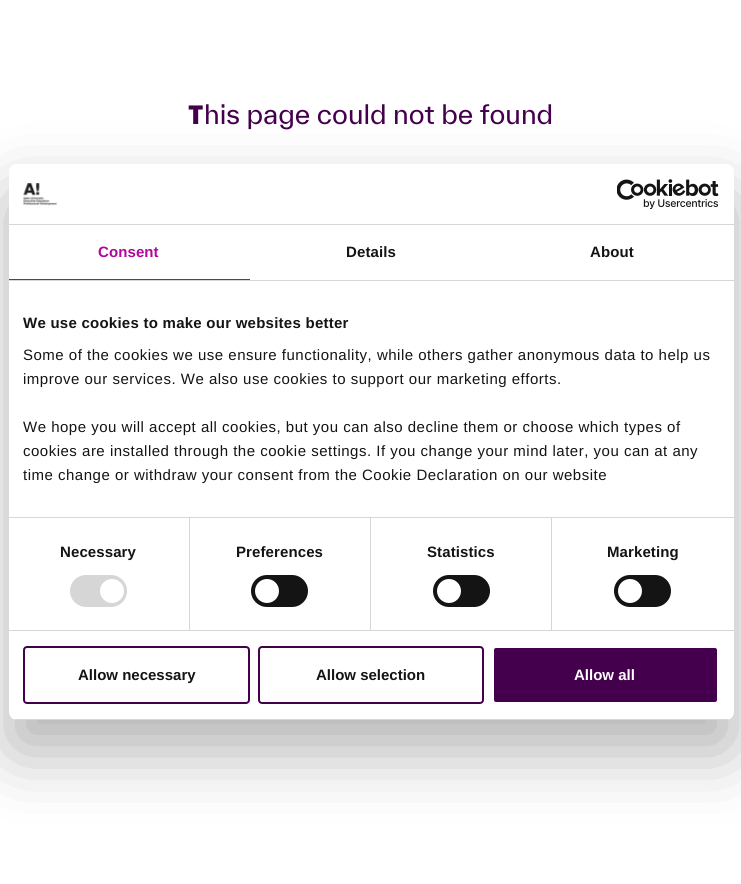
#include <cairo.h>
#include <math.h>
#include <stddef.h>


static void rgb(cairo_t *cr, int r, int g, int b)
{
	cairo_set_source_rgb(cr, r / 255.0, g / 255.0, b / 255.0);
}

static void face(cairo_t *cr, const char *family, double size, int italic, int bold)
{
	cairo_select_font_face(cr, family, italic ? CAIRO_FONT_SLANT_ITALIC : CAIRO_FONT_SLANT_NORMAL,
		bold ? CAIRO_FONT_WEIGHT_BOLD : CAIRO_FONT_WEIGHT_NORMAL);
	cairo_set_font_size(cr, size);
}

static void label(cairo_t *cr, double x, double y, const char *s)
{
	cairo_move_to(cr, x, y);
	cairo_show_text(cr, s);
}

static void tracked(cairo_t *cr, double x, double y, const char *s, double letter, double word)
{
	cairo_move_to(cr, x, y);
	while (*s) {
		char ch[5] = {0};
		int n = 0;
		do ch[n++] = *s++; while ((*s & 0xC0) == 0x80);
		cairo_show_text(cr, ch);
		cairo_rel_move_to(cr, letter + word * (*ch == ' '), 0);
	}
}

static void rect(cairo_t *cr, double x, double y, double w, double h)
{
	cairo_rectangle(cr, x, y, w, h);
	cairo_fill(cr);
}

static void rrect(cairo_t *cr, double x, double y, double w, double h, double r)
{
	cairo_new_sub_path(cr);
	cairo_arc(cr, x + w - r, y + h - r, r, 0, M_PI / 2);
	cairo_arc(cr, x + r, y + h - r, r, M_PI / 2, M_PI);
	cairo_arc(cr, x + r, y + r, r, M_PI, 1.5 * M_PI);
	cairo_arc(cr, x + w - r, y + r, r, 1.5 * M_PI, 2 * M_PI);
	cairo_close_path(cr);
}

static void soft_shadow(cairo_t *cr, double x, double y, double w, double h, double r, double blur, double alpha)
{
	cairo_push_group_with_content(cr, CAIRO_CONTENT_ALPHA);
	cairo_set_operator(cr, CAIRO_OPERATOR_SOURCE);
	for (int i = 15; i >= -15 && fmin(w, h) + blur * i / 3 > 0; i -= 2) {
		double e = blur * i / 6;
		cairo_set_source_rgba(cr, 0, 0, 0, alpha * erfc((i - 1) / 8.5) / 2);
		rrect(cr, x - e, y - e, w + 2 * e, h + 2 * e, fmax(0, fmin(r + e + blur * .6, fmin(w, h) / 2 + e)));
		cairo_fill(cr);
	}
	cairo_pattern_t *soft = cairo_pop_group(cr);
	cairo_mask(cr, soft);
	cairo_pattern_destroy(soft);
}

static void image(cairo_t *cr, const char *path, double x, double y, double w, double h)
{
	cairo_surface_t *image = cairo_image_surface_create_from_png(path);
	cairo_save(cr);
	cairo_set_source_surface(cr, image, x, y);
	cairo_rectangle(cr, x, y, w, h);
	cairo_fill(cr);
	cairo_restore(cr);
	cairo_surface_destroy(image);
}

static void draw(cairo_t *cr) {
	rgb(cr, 255, 255, 255);
	cairo_paint(cr);
	face(cr, "Noto Sans Black", 26, 0, 0);
	rgb(cr, 69, 0, 77);
	label(cr, 188, 124, "T");
	face(cr, "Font", 26, 0, 0);
	label(cr, 204, 124, "his page could not be found");
	rgb(cr, 0, 0, 0);
	soft_shadow(cr, 9, 196, 725, 556, 8, 34, 0.3);
	rgb(cr, 255, 255, 255);
	rrect(cr, 9, 164, 725, 556, 8);
	cairo_fill(cr);
	rgb(cr, 214, 214, 214);
	rect(cr, 9, 224, 725, 1);
	image(cr, "image0.png", 23, 183, 34, 23);
	image(cr, "image1.png", 617, 179, 102, 30);
	rect(cr, 9, 280, 725, 1);
	rgb(cr, 177, 5, 157);
	rect(cr, 9, 279, 241, 1);
	face(cr, "Liberation Sans", 15, 0, 1);
	tracked(cr, 98, 257, "Consent", 0.1, 0);
	rgb(cr, 20, 20, 20);
	tracked(cr, 346, 257, "Details", 0.1, 0);
	tracked(cr, 590, 257, "About", 0.1, 0);
	rgb(cr, 214, 214, 214);
	rect(cr, 9, 517, 725, 1);
	rgb(cr, 20, 20, 20);
	tracked(cr, 23, 328, "We use cookies to make our websites better", 0.25, 0);
	face(cr, "Liberation Sans", 15, 0, 0);
	tracked(cr, 23, 360, "Some of the cookies we use ensure functionality, while others gather anonymous data to help us", 0.5, 0);
	tracked(cr, 23, 384, "improve our services. We also use cookies to support our marketing efforts.", 0.5, 0);
	tracked(cr, 23, 432, "We hope you will accept all cookies, but you can also decline them or choose which types of", 0.5, 0);
	tracked(cr, 23, 456, "cookies are installed through the cookie settings. If you change your mind later, you can at any", 0.5, 0);
	tracked(cr, 23, 480, "time change or withdraw your consent from the Cookie Declaration on our website", 0.5, 0);
	rgb(cr, 214, 214, 214);
	rect(cr, 9, 630, 725, 1);
	rect(cr, 189, 518, 1, 112);
	face(cr, "Liberation Sans", 15, 0, 1);
	rgb(cr, 20, 20, 20);
	tracked(cr, 60, 557, "Necessary", 0.1, 0);
	rgb(cr, 214, 214, 214);
	rrect(cr, 70, 575, 57, 32, 16);
	cairo_fill(cr);
	rgb(cr, 255, 255, 255);
	cairo_arc(cr, 112, 591, 12, 0, 2 * M_PI);
	cairo_fill(cr);
	rgb(cr, 214, 214, 214);
	rect(cr, 370, 518, 1, 112);
	rgb(cr, 20, 20, 20);
	tracked(cr, 236, 557, "Preferences", 0.1, 0);
	rrect(cr, 251, 575, 57, 32, 16);
	cairo_fill(cr);
	rgb(cr, 255, 255, 255);
	cairo_arc(cr, 267, 591, 12, 0, 2 * M_PI);
	cairo_fill(cr);
	rgb(cr, 214, 214, 214);
	rect(cr, 551, 518, 1, 112);
	rgb(cr, 20, 20, 20);
	tracked(cr, 427, 557, "Statistics", 0.1, 0);
	rrect(cr, 433, 575, 57, 32, 16);
	cairo_fill(cr);
	rgb(cr, 255, 255, 255);
	cairo_arc(cr, 449, 591, 12, 0, 2 * M_PI);
	cairo_fill(cr);
	rgb(cr, 20, 20, 20);
	tracked(cr, 607, 557, "Marketing", 0.1, 0);
	rrect(cr, 614, 575, 57, 32, 16);
	cairo_fill(cr);
	rgb(cr, 255, 255, 255);
	cairo_arc(cr, 630, 591, 12, 0, 2 * M_PI);
	cairo_fill(cr);
	cairo_save(cr);
	rrect(cr, 9, 164, 725, 556, 8);
	cairo_clip(cr);
	rgb(cr, 214, 214, 214);
	rect(cr, 9, 719, 725, 1);
	cairo_restore(cr);
	rrect(cr, 24, 647, 225, 56, 3);
	rgb(cr, 69, 0, 77);
	cairo_stroke(cr);
	rgb(cr, 20, 20, 20);
	label(cr, 78, 680, "Allow necessary");
	rrect(cr, 259, 647, 224, 56, 3);
	rgb(cr, 69, 0, 77);
	cairo_stroke(cr);
	rgb(cr, 20, 20, 20);
	label(cr, 316, 680, "Allow selection");
	rgb(cr, 69, 0, 77);
	rrect(cr, 493, 647, 225, 56, 3);
	cairo_fill_preserve(cr);
	rgb(cr, 255, 255, 255);
	cairo_stroke(cr);
	label(cr, 574, 680, "Allow all");
}

int main(void) {
	cairo_surface_t *surface = cairo_image_surface_create(CAIRO_FORMAT_RGB24, 741, 884);
	cairo_t *cr = cairo_create(surface);
	cairo_font_options_t *options = cairo_font_options_create();
	cairo_font_options_set_hint_metrics(options, CAIRO_HINT_METRICS_OFF);
	cairo_font_options_set_hint_style(options, CAIRO_HINT_STYLE_NONE);
	cairo_set_font_options(cr, options);
	cairo_set_miter_limit(cr, 4);
	draw(cr);
	cairo_surface_write_to_png(surface, "render.png");
	cairo_font_options_destroy(options);
	cairo_destroy(cr);
	cairo_surface_destroy(surface);
	return 0;
}
